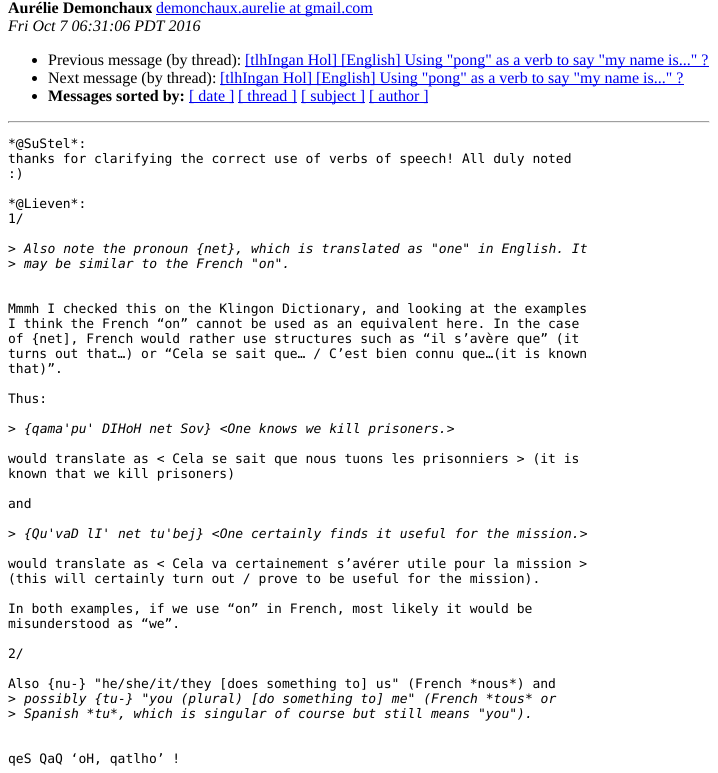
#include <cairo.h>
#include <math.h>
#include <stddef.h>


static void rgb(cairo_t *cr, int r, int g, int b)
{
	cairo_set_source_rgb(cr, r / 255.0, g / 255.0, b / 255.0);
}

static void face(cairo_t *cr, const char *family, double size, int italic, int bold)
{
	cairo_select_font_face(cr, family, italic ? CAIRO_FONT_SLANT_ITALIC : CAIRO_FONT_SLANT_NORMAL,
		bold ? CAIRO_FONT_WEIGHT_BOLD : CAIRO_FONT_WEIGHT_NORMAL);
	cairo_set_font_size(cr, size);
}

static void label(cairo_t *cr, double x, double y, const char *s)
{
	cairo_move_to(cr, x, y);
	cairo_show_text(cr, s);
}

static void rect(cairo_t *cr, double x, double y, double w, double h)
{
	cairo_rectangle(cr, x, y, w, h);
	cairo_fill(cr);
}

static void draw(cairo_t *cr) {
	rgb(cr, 255, 255, 255);
	cairo_paint(cr);
	face(cr, "Liberation Serif", 16, 0, 1);
	rgb(cr, 0, 0, 0);
	label(cr, 8, 13, "Aurélie Demonchaux");
	rgb(cr, 0, 0, 238);
	rect(cr, 156, 14, 217, 1);
	face(cr, "Liberation Serif", 16, 0, 0);
	label(cr, 156, 13, "demonchaux.aurelie at gmail.com");
	face(cr, "Liberation Serif", 16, 1, 0);
	rgb(cr, 0, 0, 0);
	label(cr, 8, 31, "Fri Oct 7 06:31:06 PDT 2016");
	cairo_new_path(cr);
	cairo_arc(cr, 34.5, 60.5, 2.5, 0, 2 * M_PI);
	cairo_fill(cr);
	face(cr, "Liberation Serif", 16, 0, 0);
	label(cr, 48, 65, "Previous message (by thread):");
	rgb(cr, 0, 0, 238);
	rect(cr, 245, 66, 464, 1);
	label(cr, 245, 65, "[tlhIngan Hol] [English] Using \"pong\" as a verb to say \"my name is...\" ?");
	rgb(cr, 0, 0, 0);
	cairo_new_path(cr);
	cairo_arc(cr, 34.5, 78.5, 2.5, 0, 2 * M_PI);
	cairo_fill(cr);
	label(cr, 48, 83, "Next message (by thread):");
	rgb(cr, 0, 0, 238);
	rect(cr, 220, 84, 464, 1);
	label(cr, 220, 83, "[tlhIngan Hol] [English] Using \"pong\" as a verb to say \"my name is...\" ?");
	rgb(cr, 0, 0, 0);
	cairo_new_path(cr);
	cairo_arc(cr, 34.5, 96.5, 2.5, 0, 2 * M_PI);
	cairo_fill(cr);
	face(cr, "Liberation Serif", 16, 0, 1);
	label(cr, 48, 101, "Messages sorted by:");
	rgb(cr, 0, 0, 238);
	rect(cr, 189, 102, 45, 1);
	face(cr, "Liberation Serif", 16, 0, 0);
	label(cr, 189, 101, "[ date ]");
	rect(cr, 238, 102, 59, 1);
	label(cr, 238, 101, "[ thread ]");
	rect(cr, 301, 102, 64, 1);
	label(cr, 301, 101, "[ subject ]");
	rect(cr, 369, 102, 59, 1);
	label(cr, 369, 101, "[ author ]");
	rgb(cr, 159, 159, 159);
	rect(cr, 8, 121, 702, 1);
	rgb(cr, 238, 238, 238);
	rect(cr, 709, 121, 1, 2);
	rect(cr, 8, 122, 702, 1);
	rgb(cr, 159, 159, 159);
	rect(cr, 8, 121, 1, 2);
	face(cr, "DejaVu Sans Mono", 13, 0, 0);
	rgb(cr, 0, 0, 0);
	label(cr, 8, 148, "*@SuStel*:");
	label(cr, 8, 163, "thanks for clarifying the correct use of verbs of speech! All duly noted");
	label(cr, 8, 178, ":)");
	label(cr, 8, 208, "*@Lieven*:");
	label(cr, 8, 223, "1/");
	label(cr, 8, 253, ">");
	face(cr, "DejaVu Sans Mono", 13, 1, 0);
	label(cr, 24, 253, "Also note the pronoun {net}, which is translated as \"one\" in English. It");
	face(cr, "DejaVu Sans Mono", 13, 0, 0);
	label(cr, 8, 268, ">");
	face(cr, "DejaVu Sans Mono", 13, 1, 0);
	label(cr, 24, 268, "may be similar to the French \"on\".");
	face(cr, "DejaVu Sans Mono", 13, 0, 0);
	label(cr, 8, 313, "Mmmh I checked this on the Klingon Dictionary, and looking at the examples");
	label(cr, 8, 328, "I think the French “on” cannot be used as an equivalent here. In the case");
	label(cr, 8, 343, "of {net], French would rather use structures such as “il s’avère que” (it");
	label(cr, 8, 358, "turns out that…) or “Cela se sait que… / C’est bien connu que…(it is known");
	label(cr, 8, 373, "that)”.");
	label(cr, 8, 403, "Thus:");
	label(cr, 8, 433, ">");
	face(cr, "DejaVu Sans Mono", 13, 1, 0);
	label(cr, 24, 433, "{qama'pu' DIHoH net Sov} <One knows we kill prisoners.>");
	face(cr, "DejaVu Sans Mono", 13, 0, 0);
	label(cr, 8, 463, "would translate as < Cela se sait que nous tuons les prisonniers > (it is");
	label(cr, 8, 478, "known that we kill prisoners)");
	label(cr, 8, 508, "and");
	label(cr, 8, 538, ">");
	face(cr, "DejaVu Sans Mono", 13, 1, 0);
	label(cr, 24, 538, "{Qu'vaD lI' net tu'bej} <One certainly finds it useful for the mission.>");
	face(cr, "DejaVu Sans Mono", 13, 0, 0);
	label(cr, 8, 568, "would translate as < Cela va certainement s’avérer utile pour la mission >");
	label(cr, 8, 583, "(this will certainly turn out / prove to be useful for the mission).");
	label(cr, 8, 613, "In both examples, if we use “on” in French, most likely it would be");
	label(cr, 8, 628, "misunderstood as “we”.");
	label(cr, 8, 658, "2/");
	label(cr, 8, 688, "Also {nu-} \"he/she/it/they [does something to] us\" (French *nous*) and");
	label(cr, 8, 703, ">");
	face(cr, "DejaVu Sans Mono", 13, 1, 0);
	label(cr, 24, 703, "possibly {tu-} \"you (plural) [do something to] me\" (French *tous* or");
	face(cr, "DejaVu Sans Mono", 13, 0, 0);
	label(cr, 8, 718, ">");
	face(cr, "DejaVu Sans Mono", 13, 1, 0);
	label(cr, 24, 718, "Spanish *tu*, which is singular of course but still means \"you\").");
	face(cr, "DejaVu Sans Mono", 13, 0, 0);
	label(cr, 8, 763, "qeS QaQ ‘oH, qatlho’ !");
}

int main(void) {
	cairo_surface_t *surface = cairo_image_surface_create(CAIRO_FORMAT_RGB24, 718, 773);
	cairo_t *cr = cairo_create(surface);
	cairo_font_options_t *options = cairo_font_options_create();
	cairo_font_options_set_hint_metrics(options, CAIRO_HINT_METRICS_OFF);
	cairo_font_options_set_hint_style(options, CAIRO_HINT_STYLE_NONE);
	cairo_set_font_options(cr, options);
	cairo_set_miter_limit(cr, 4);
	draw(cr);
	cairo_surface_write_to_png(surface, "render.png");
	cairo_font_options_destroy(options);
	cairo_destroy(cr);
	cairo_surface_destroy(surface);
	return 0;
}
